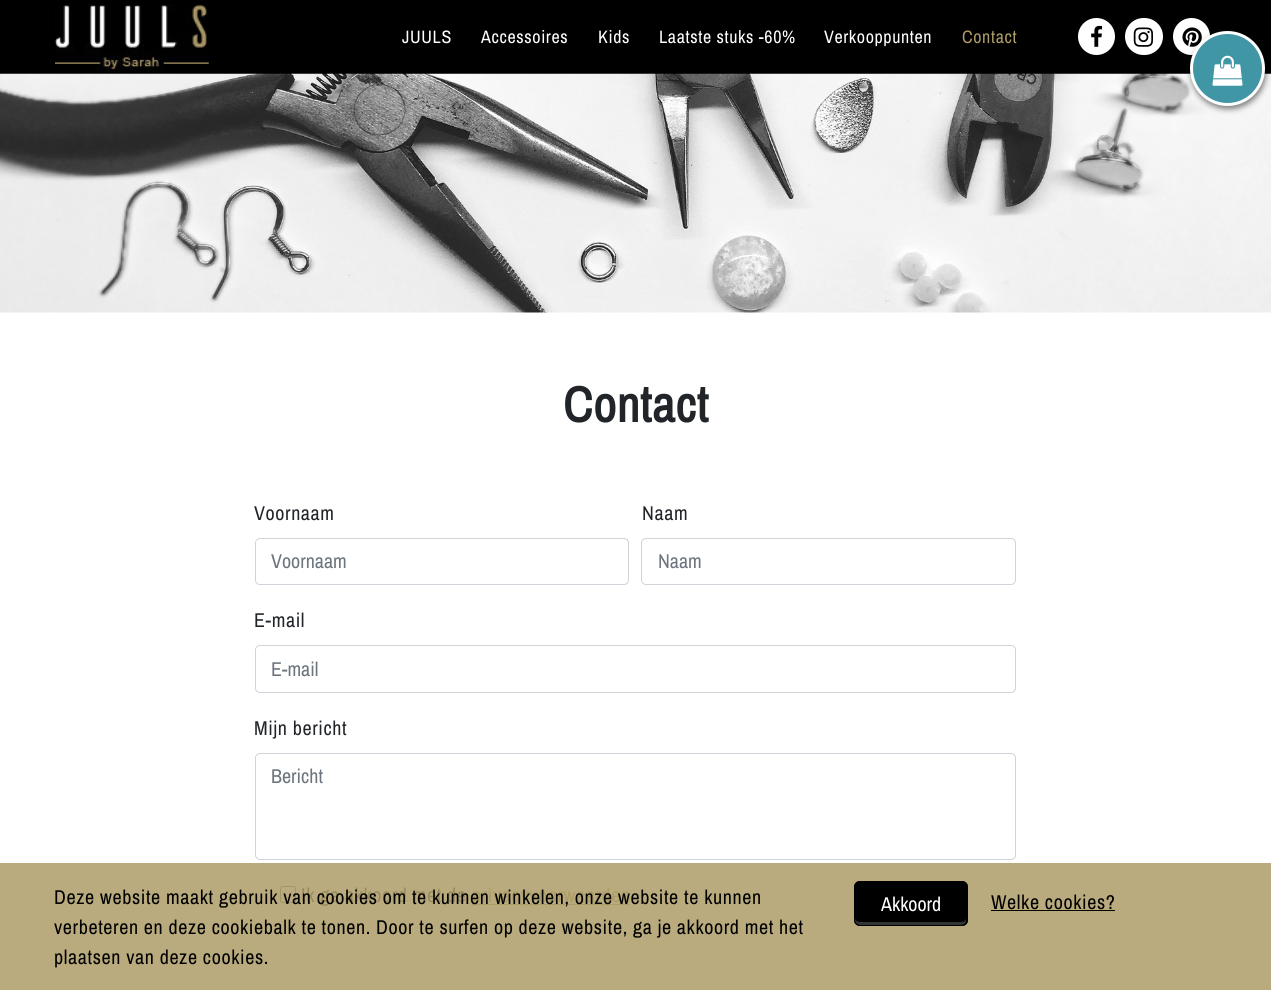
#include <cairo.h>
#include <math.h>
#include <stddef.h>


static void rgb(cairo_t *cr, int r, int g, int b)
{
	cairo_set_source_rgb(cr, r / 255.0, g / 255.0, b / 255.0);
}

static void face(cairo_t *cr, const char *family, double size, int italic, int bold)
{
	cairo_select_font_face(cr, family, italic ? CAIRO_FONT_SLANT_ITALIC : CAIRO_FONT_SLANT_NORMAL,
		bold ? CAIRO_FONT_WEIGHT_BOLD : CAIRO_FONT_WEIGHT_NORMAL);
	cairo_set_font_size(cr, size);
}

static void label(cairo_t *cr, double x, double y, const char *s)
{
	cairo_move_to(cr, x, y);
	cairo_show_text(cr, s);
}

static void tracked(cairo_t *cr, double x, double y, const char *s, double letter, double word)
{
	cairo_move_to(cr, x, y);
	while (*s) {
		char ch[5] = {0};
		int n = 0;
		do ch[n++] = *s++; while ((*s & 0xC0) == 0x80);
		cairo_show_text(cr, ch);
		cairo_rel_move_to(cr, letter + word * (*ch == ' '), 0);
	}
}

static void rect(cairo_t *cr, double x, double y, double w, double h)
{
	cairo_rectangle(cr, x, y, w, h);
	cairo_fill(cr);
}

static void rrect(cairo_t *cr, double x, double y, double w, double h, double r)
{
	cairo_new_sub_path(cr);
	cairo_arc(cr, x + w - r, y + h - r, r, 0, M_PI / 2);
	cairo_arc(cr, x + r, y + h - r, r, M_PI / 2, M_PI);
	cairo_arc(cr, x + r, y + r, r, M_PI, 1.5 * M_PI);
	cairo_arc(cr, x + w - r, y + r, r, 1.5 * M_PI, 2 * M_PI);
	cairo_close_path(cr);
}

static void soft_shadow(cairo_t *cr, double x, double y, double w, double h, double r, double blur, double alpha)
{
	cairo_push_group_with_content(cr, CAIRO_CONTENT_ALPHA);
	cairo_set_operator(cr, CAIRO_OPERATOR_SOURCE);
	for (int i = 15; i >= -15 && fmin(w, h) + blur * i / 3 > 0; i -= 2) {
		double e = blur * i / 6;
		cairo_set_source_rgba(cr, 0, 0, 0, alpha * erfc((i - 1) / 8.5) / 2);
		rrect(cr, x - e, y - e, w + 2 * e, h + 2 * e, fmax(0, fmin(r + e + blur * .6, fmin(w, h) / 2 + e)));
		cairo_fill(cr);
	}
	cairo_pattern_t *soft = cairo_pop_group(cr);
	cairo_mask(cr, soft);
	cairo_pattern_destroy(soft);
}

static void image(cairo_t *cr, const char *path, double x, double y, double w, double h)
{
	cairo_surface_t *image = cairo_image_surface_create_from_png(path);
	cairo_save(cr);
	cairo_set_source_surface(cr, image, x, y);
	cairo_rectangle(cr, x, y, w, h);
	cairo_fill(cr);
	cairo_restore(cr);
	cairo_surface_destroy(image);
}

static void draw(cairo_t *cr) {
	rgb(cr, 255, 255, 255);
	cairo_paint(cr);
	rgb(cr, 185, 171, 125);
	rect(cr, 0, 863, 1271, 127);
	rgb(cr, 0, 0, 0);
	rect(cr, 0, 0, 1271, 74);
	image(cr, "image0.png", 55, 3, 154, 67);
	face(cr, "Archivo Narrow", 18, 0, 0);
	rgb(cr, 255, 255, 255);
	tracked(cr, 402, 43, "JUULS", 0.62, 0);
	tracked(cr, 481, 43, "Accessoires", 0.62, 0);
	tracked(cr, 598, 43, "Kids", 0.62, 0);
	tracked(cr, 659, 43, "Laatste stuks -60%", 0.62, 0);
	tracked(cr, 824, 43, "Verkooppunten", 0.62, 0);
	rgb(cr, 173, 156, 102);
	tracked(cr, 962, 43, "Contact", 0.62, 0);
	rgb(cr, 255, 255, 255);
	cairo_new_path(cr);
	cairo_arc(cr, 1096.5, 36.5, 18.5, 0, 2 * M_PI);
	cairo_fill(cr);
	image(cr, "image1.png", 1091, 25, 12, 22);
	rrect(cr, 1125, 18, 38, 37, 18.5);
	cairo_fill(cr);
	image(cr, "image2.png", 1133, 27, 21, 20);
	cairo_arc(cr, 1191.5, 36.5, 18.5, 0, 2 * M_PI);
	cairo_fill(cr);
	image(cr, "image3.png", 1182, 27, 20, 20);
	image(cr, "image5.png", 0, 73, 1271, 240);
	rgb(cr, 0, 0, 0);
	soft_shadow(cr, 1191, 34, 75, 75, 37.5, 3, 0.5);
	rgb(cr, 65, 150, 165);
	cairo_arc(cr, 1227.5, 68.5, 36, 0, 2 * M_PI);
	cairo_fill_preserve(cr);
	rgb(cr, 255, 255, 255);
	cairo_set_line_width(cr, 3);
	cairo_stroke(cr);
	image(cr, "image4.png", 1212, 55, 31, 31);
	face(cr, "Archivo Narrow", 50, 0, 1);
	rgb(cr, 33, 37, 41);
	tracked(cr, 563, 422, "Contact", 0.62, 0);
	face(cr, "Archivo Narrow", 20, 0, 0);
	tracked(cr, 254, 520, "Voornaam", 0.62, 0);
	rrect(cr, 255.5, 538.5, 373, 46, 4.5);
	rgb(cr, 206, 212, 218);
	cairo_set_line_width(cr, 1);
	cairo_stroke(cr);
	rgb(cr, 108, 117, 125);
	label(cr, 271, 568, "Voornaam");
	rgb(cr, 33, 37, 41);
	tracked(cr, 642, 520, "Naam", 0.62, 0);
	rrect(cr, 641.5, 538.5, 374, 46, 4.5);
	rgb(cr, 206, 212, 218);
	cairo_stroke(cr);
	rgb(cr, 108, 117, 125);
	label(cr, 658, 568, "Naam");
	rgb(cr, 33, 37, 41);
	tracked(cr, 254, 627, "E-mail", 0.62, 0);
	rrect(cr, 255.5, 645.5, 760, 47, 4.5);
	rgb(cr, 206, 212, 218);
	cairo_stroke(cr);
	rgb(cr, 108, 117, 125);
	label(cr, 271, 676, "E-mail");
	rgb(cr, 33, 37, 41);
	tracked(cr, 254, 735, "Mijn bericht", 0.62, 0);
	rrect(cr, 255.5, 753.5, 760, 106, 4.5);
	rgb(cr, 206, 212, 218);
	cairo_stroke(cr);
	rgb(cr, 108, 117, 125);
	label(cr, 271, 783, "Bericht");
	rrect(cr, 280.5, 886.5, 15, 16, 2);
	rgb(cr, 165, 150, 104);
	cairo_stroke(cr);
	rgb(cr, 152, 138, 93);
	tracked(cr, 301, 902, "Ik ga akkoord met de", 0.62, 0);
	rgb(cr, 173, 156, 102);
	rect(cr, 471, 904, 159, 1);
	tracked(cr, 472, 902, "privacyvoorwaarden", 0.62, 0);
	rgb(cr, 0, 0, 0);
	tracked(cr, 54, 904, "Deze website maakt gebruik van cookies om te kunnen winkelen, onze website te kunnen", 0.62, 0);
	tracked(cr, 54, 934, "verbeteren en deze cookiebalk te tonen. Door te surfen op deze website, ga je akkoord met het", 0.62, 0);
	tracked(cr, 54, 964, "plaatsen van deze cookies.", 0.62, 0);
	rrect(cr, 854, 881, 114, 45, 6);
	cairo_fill(cr);
	rgb(cr, 51, 51, 51);
	cairo_new_path(cr);
	cairo_move_to(cr, 855, 918);
	cairo_line_to(cr, 855, 920);
	cairo_curve_to(cr, 855, 923, 857, 925, 860, 925);
	cairo_line_to(cr, 961, 925);
	cairo_curve_to(cr, 964, 925, 966, 923, 966, 920);
	cairo_line_to(cr, 966, 918);
	cairo_curve_to(cr, 966, 920, 964, 922, 961, 922);
	cairo_line_to(cr, 860, 922);
	cairo_curve_to(cr, 857, 922, 855, 920, 855, 918);
	cairo_close_path(cr);
	cairo_fill(cr);
	rrect(cr, 854.5, 881.5, 113, 44, 5.5);
	rgb(cr, 0, 0, 0);
	cairo_stroke(cr);
	rgb(cr, 255, 255, 255);
	label(cr, 881, 911, "Akkoord");
	rgb(cr, 0, 0, 0);
	tracked(cr, 991, 909, "Welke cookies?", 0.62, 0);
	rect(cr, 991, 910, 124, 1);
}

int main(void) {
	cairo_surface_t *surface = cairo_image_surface_create(CAIRO_FORMAT_RGB24, 1271, 990);
	cairo_t *cr = cairo_create(surface);
	cairo_font_options_t *options = cairo_font_options_create();
	cairo_font_options_set_hint_metrics(options, CAIRO_HINT_METRICS_OFF);
	cairo_font_options_set_hint_style(options, CAIRO_HINT_STYLE_NONE);
	cairo_set_font_options(cr, options);
	cairo_set_miter_limit(cr, 4);
	draw(cr);
	cairo_surface_write_to_png(surface, "render.png");
	cairo_font_options_destroy(options);
	cairo_destroy(cr);
	cairo_surface_destroy(surface);
	return 0;
}
